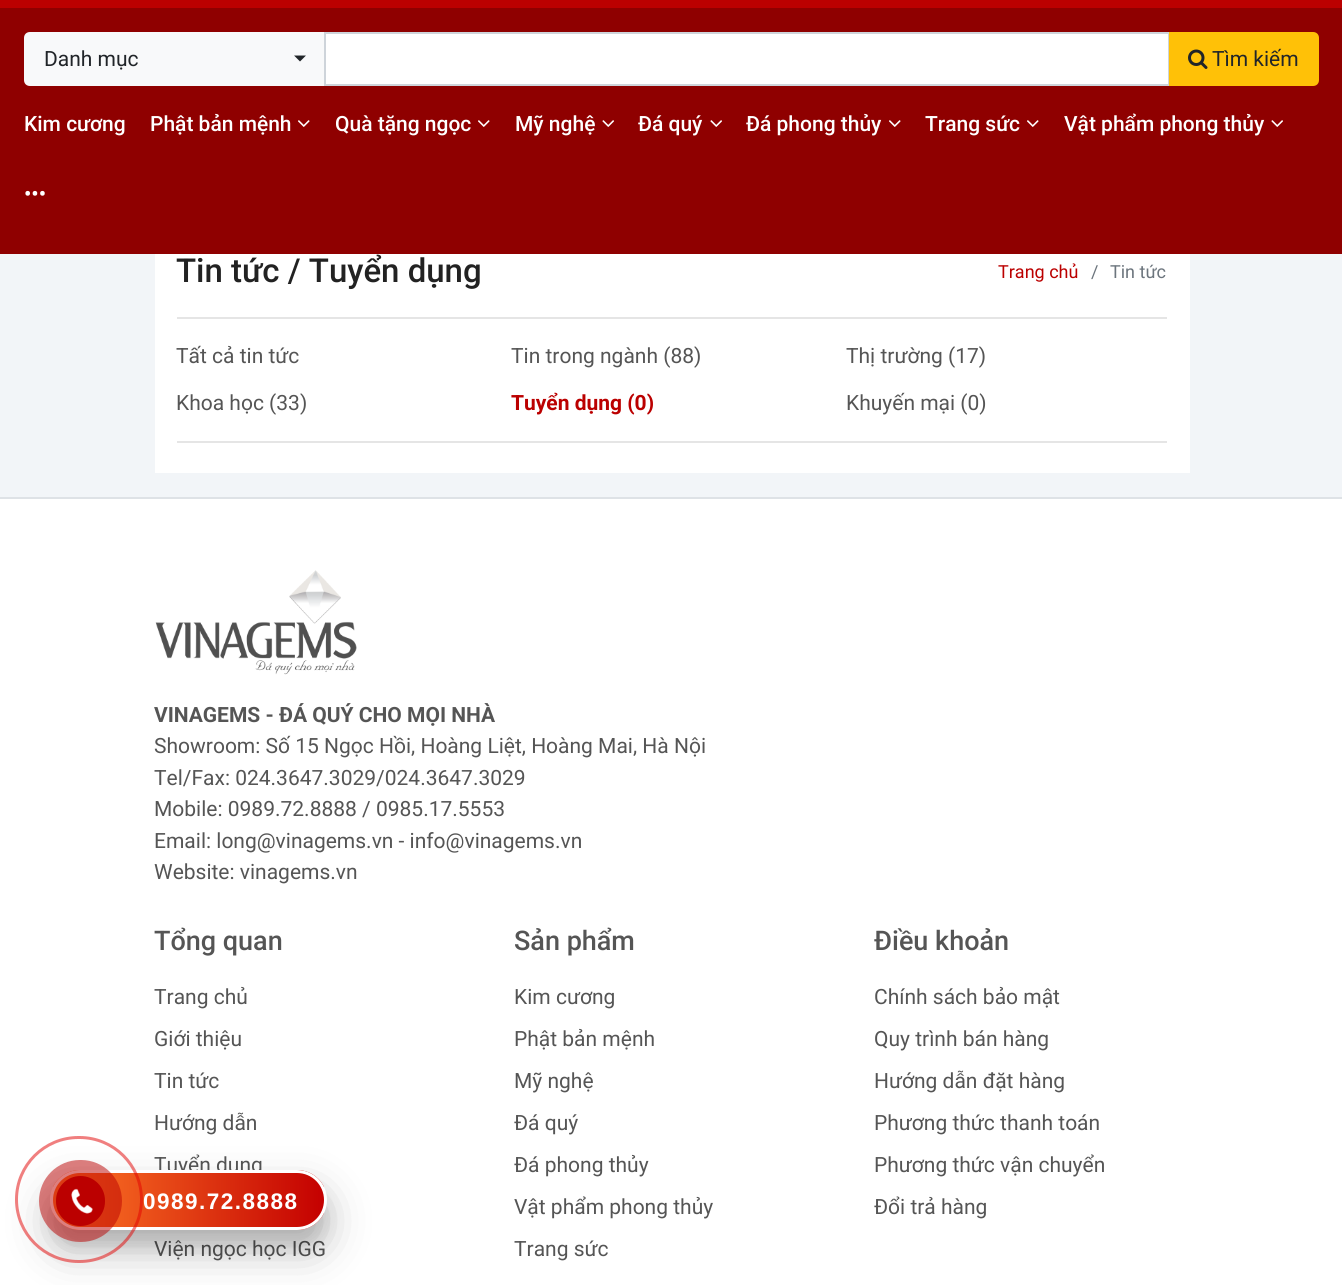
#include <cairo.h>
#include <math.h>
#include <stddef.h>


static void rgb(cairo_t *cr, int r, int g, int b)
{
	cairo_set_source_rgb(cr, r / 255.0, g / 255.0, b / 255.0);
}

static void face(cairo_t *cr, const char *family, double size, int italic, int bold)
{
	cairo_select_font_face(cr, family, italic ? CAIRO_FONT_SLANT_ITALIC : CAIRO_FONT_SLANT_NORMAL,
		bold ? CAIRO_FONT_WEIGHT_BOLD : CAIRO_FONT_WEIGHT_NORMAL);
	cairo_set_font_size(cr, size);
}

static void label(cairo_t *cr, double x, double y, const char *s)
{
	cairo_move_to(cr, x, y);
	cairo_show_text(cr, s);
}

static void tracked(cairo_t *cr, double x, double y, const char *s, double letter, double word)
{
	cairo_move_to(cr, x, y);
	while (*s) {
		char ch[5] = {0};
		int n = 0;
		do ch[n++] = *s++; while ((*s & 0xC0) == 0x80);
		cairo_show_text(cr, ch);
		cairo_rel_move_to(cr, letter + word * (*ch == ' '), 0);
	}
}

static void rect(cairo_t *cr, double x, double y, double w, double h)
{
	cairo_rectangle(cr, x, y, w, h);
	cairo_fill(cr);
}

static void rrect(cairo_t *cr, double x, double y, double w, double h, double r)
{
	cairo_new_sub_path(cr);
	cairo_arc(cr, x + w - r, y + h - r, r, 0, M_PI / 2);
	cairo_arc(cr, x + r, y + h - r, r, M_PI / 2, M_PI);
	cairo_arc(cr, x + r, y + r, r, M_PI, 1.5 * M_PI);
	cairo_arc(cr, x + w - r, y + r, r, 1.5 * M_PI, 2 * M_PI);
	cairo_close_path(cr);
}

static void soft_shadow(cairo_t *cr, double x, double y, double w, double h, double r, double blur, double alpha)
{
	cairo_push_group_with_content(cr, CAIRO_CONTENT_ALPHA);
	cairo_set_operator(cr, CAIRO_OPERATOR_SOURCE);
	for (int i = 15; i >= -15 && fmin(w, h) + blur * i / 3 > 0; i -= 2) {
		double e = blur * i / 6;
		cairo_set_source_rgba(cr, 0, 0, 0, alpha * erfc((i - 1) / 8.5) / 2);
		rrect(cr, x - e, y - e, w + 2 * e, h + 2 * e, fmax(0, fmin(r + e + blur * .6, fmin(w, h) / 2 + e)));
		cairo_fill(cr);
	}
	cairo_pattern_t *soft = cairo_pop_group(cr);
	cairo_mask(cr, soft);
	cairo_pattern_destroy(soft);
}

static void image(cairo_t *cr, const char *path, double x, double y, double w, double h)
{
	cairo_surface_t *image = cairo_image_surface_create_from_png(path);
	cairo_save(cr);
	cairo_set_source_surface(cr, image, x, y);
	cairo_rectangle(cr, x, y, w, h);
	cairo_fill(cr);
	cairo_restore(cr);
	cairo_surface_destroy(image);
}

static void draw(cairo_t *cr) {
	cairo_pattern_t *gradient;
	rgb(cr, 242, 245, 248);
	cairo_paint(cr);
	rgb(cr, 187, 0, 0);
	rect(cr, 0, 0, 1342, 8);
	rgb(cr, 143, 0, 0);
	rect(cr, 0, 8, 1342, 246);
	rgb(cr, 248, 249, 250);
	cairo_new_path(cr);
	cairo_move_to(cr, 30, 33);
	cairo_line_to(cr, 325, 33);
	cairo_line_to(cr, 325, 85);
	cairo_line_to(cr, 30, 85);
	cairo_curve_to(cr, 27, 85, 25, 83, 25, 80);
	cairo_line_to(cr, 25, 38);
	cairo_curve_to(cr, 25, 35, 27, 33, 30, 33);
	cairo_close_path(cr);
	cairo_fill_preserve(cr);
	cairo_stroke(cr);
	face(cr, "Roboto", 21, 0, 0);
	rgb(cr, 33, 37, 41);
	label(cr, 44, 66, "Danh mục");
	cairo_new_path(cr);
	cairo_move_to(cr, 294, 55.5);
	cairo_line_to(cr, 306, 55.5);
	cairo_line_to(cr, 300, 61.5);
	cairo_close_path(cr);
	cairo_fill(cr);
	rgb(cr, 255, 255, 255);
	cairo_rectangle(cr, 325, 33, 844, 52);
	cairo_fill_preserve(cr);
	rgb(cr, 206, 212, 218);
	cairo_stroke(cr);
	rgb(cr, 255, 193, 7);
	cairo_new_path(cr);
	cairo_move_to(cr, 1170, 33);
	cairo_line_to(cr, 1313, 33);
	cairo_curve_to(cr, 1316, 33, 1318, 35, 1318, 38);
	cairo_line_to(cr, 1318, 80);
	cairo_curve_to(cr, 1318, 83, 1316, 85, 1313, 85);
	cairo_line_to(cr, 1170, 85);
	cairo_close_path(cr);
	cairo_fill_preserve(cr);
	cairo_stroke(cr);
	image(cr, "image0.png", 1188, 49, 20, 20);
	rgb(cr, 33, 37, 41);
	label(cr, 1212, 66, "Tìm kiếm");
	face(cr, "Roboto Medium", 21, 0, 0);
	rgb(cr, 255, 255, 255);
	label(cr, 24, 131, "Kim cương");
	label(cr, 150, 131, "Phật bản mệnh");
	image(cr, "image1.png", 298, 120, 12, 7);
	label(cr, 335, 131, "Quà tặng ngọc");
	image(cr, "image1.png", 478, 120, 12, 7);
	label(cr, 515, 131, "Mỹ nghệ");
	image(cr, "image2.png", 602, 120, 12, 7);
	label(cr, 638, 131, "Đá quý");
	image(cr, "image2.png", 710, 120, 12, 7);
	label(cr, 746, 131, "Đá phong thủy");
	image(cr, "image1.png", 889, 120, 12, 7);
	label(cr, 925, 131, "Trang sức");
	image(cr, "image1.png", 1027, 120, 12, 7);
	label(cr, 1064, 131, "Vật phẩm phong thủy");
	image(cr, "image2.png", 1271, 120, 12, 7);
	label(cr, 24, 201, "•••");
	rect(cr, 155, 254, 1035, 219);
	face(cr, "Roboto Medium", 33, 0, 0);
	rgb(cr, 34, 34, 34);
	label(cr, 176, 282, "Tin tức / Tuyển dụng");
	face(cr, "Roboto", 18, 0, 0);
	rgb(cr, 187, 0, 0);
	label(cr, 998, 278, "Trang chủ");
	rgb(cr, 108, 117, 125);
	label(cr, 1091, 278, "/");
	label(cr, 1110, 278, "Tin tức");
	rgb(cr, 229, 229, 229);
	rect(cr, 177, 317, 990, 2);
	rect(cr, 177, 441, 990, 2);
	face(cr, "Roboto", 21, 0, 0);
	rgb(cr, 85, 85, 85);
	label(cr, 176, 363, "Tất cả tin tức");
	label(cr, 511, 363, "Tin trong ngành (88)");
	label(cr, 846, 363, "Thị trường (17)");
	label(cr, 176, 410, "Khoa học (33)");
	face(cr, "Roboto", 21, 0, 1);
	rgb(cr, 187, 0, 0);
	label(cr, 511, 410, "Tuyển dụng (0)");
	face(cr, "Roboto", 21, 0, 0);
	rgb(cr, 85, 85, 85);
	label(cr, 846, 410, "Khuyến mại (0)");
	rgb(cr, 255, 255, 255);
	rect(cr, 0, 499, 1342, 786);
	rgb(cr, 222, 226, 230);
	rect(cr, 0, 497, 1342, 2);
	image(cr, "image3.png", 155, 570, 202, 105);
	face(cr, "Roboto", 21, 0, 1);
	rgb(cr, 85, 85, 85);
	label(cr, 154, 722, "VINAGEMS - ĐÁ QUÝ CHO MỌI NHÀ");
	face(cr, "Roboto", 21, 0, 0);
	label(cr, 154, 753, "Showroom: Số 15 Ngọc Hồi, Hoàng Liệt, Hoàng Mai, Hà Nội");
	label(cr, 154, 785, "Tel/Fax: 024.3647.3029/024.3647.3029");
	label(cr, 154, 816, "Mobile: 0989.72.8888 / 0985.17.5553");
	label(cr, 154, 848, "Email: long@vinagems.vn - info@vinagems.vn");
	label(cr, 154, 879, "Website: vinagems.vn");
	face(cr, "Roboto Medium", 27, 0, 0);
	label(cr, 154, 950, "Tổng quan");
	face(cr, "Roboto", 21, 0, 0);
	label(cr, 154, 1004, "Trang chủ");
	label(cr, 154, 1046, "Giới thiệu");
	label(cr, 154, 1088, "Tin tức");
	label(cr, 154, 1130, "Hướng dẫn");
	label(cr, 154, 1172, "Tuyển dụng");
	label(cr, 154, 1256, "Viện ngọc học IGG");
	face(cr, "Roboto Medium", 27, 0, 0);
	label(cr, 514, 950, "Sản phẩm");
	face(cr, "Roboto", 21, 0, 0);
	label(cr, 514, 1004, "Kim cương");
	label(cr, 514, 1046, "Phật bản mệnh");
	label(cr, 514, 1088, "Mỹ nghệ");
	label(cr, 514, 1130, "Đá quý");
	label(cr, 514, 1172, "Đá phong thủy");
	label(cr, 514, 1214, "Vật phẩm phong thủy");
	label(cr, 514, 1256, "Trang sức");
	face(cr, "Roboto Medium", 27, 0, 0);
	label(cr, 874, 950, "Điều khoản");
	face(cr, "Roboto", 21, 0, 0);
	label(cr, 874, 1004, "Chính sách bảo mật");
	label(cr, 874, 1046, "Quy trình bán hàng");
	label(cr, 874, 1088, "Hướng dẫn đặt hàng");
	label(cr, 874, 1130, "Phương thức thanh toán");
	label(cr, 874, 1172, "Phương thức vận chuyển");
	label(cr, 874, 1214, "Đổi trả hàng");
	rgb(cr, 0, 0, 0);
	soft_shadow(cr, 50, 1185, 277, 60, 30, 7.5, 0.1);
	soft_shadow(cr, 50, 1191, 277, 60, 30, 21, 0.25);
	cairo_save(cr);
	rrect(cr, 50, 1170, 277, 60, 30);
	cairo_clip(cr);
	gradient = cairo_pattern_create_linear(53, 1200, 324, 1200);
	cairo_pattern_add_color_stop_rgba(gradient, 0, 1, 0.482, 0.153, 1);
	cairo_pattern_add_color_stop_rgba(gradient, 1, 0.769, 0, 0, 1);
	cairo_set_source(cr, gradient);
	cairo_pattern_destroy(gradient);
	rect(cr, 53, 1170, 271, 60);
	cairo_restore(cr);
	rrect(cr, 51.5, 1171.5, 274, 57, 28.5);
	rgb(cr, 255, 255, 255);
	cairo_set_line_width(cr, 3);
	cairo_stroke(cr);
	rrect(cr, 16.5, 1137.5, 125, 124, 62);
	cairo_set_source_rgba(cr, 0.89, 0, 0, 0.5);
	cairo_stroke(cr);
	cairo_set_source_rgba(cr, 0.733, 0, 0, 0.5);
	rrect(cr, 39, 1160, 83, 82, 41);
	cairo_fill(cr);
	rgb(cr, 187, 0, 0);
	rrect(cr, 56, 1176, 49, 50, 24.5);
	cairo_fill(cr);
	image(cr, "image4.png", 71, 1188, 22, 26);
	face(cr, "Liberation Sans", 22.5, 0, 1);
	rgb(cr, 255, 255, 255);
	tracked(cr, 143, 1209, "0989.72.8888", 1.5, 0);
}

int main(void) {
	cairo_surface_t *surface = cairo_image_surface_create(CAIRO_FORMAT_RGB24, 1342, 1285);
	cairo_t *cr = cairo_create(surface);
	cairo_font_options_t *options = cairo_font_options_create();
	cairo_font_options_set_hint_metrics(options, CAIRO_HINT_METRICS_OFF);
	cairo_font_options_set_hint_style(options, CAIRO_HINT_STYLE_NONE);
	cairo_set_font_options(cr, options);
	cairo_set_miter_limit(cr, 4);
	draw(cr);
	cairo_surface_write_to_png(surface, "render.png");
	cairo_font_options_destroy(options);
	cairo_destroy(cr);
	cairo_surface_destroy(surface);
	return 0;
}
